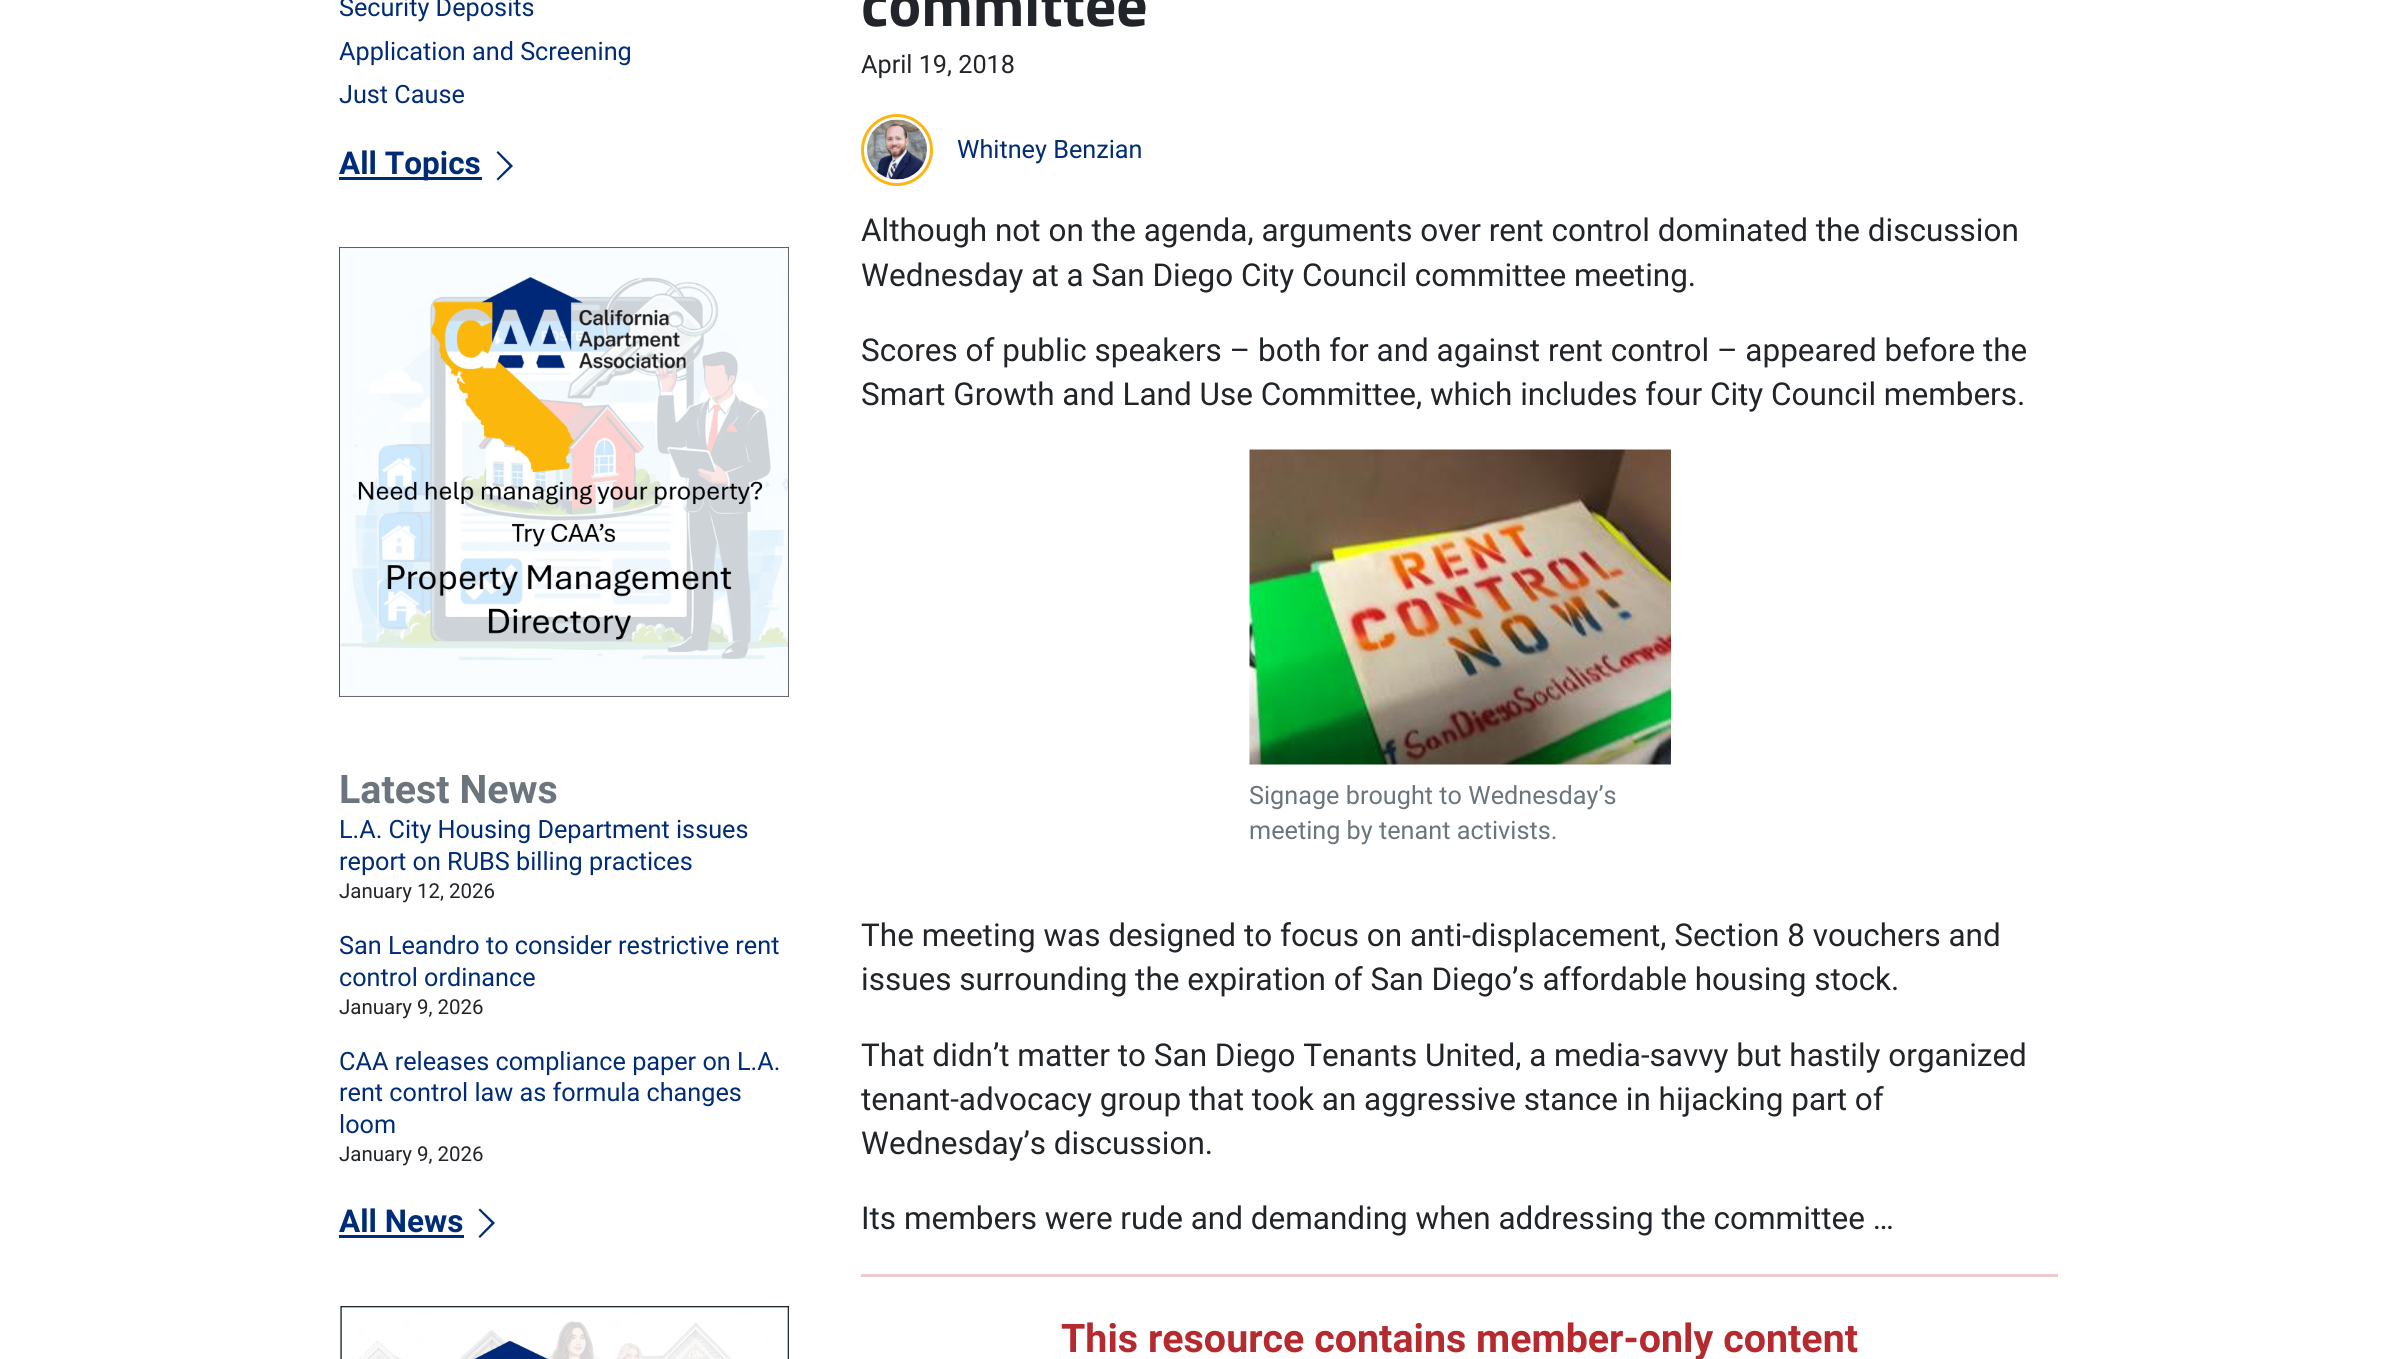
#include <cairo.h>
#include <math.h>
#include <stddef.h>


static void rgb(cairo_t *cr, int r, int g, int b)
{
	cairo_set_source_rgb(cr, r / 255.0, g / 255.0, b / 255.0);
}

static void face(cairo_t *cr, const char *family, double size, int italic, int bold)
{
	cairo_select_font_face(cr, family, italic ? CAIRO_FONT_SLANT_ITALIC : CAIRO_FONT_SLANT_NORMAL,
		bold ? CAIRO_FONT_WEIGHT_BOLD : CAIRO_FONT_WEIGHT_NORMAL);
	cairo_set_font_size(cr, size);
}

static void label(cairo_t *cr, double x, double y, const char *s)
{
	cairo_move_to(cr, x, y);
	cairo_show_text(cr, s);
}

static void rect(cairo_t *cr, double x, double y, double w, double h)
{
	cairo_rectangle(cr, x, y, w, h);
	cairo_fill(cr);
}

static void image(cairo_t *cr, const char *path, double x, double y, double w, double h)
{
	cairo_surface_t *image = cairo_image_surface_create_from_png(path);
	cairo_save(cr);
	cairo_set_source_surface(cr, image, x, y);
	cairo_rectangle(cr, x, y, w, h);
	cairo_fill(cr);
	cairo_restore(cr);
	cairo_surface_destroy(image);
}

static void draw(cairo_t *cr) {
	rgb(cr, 255, 255, 255);
	cairo_paint(cr);
	face(cr, "Roboto", 25.25, 0, 0);
	rgb(cr, 0, 44, 119);
	label(cr, 339, 16, "Security Deposits");
	label(cr, 339, 60, "Application and Screening");
	label(cr, 339, 103, "Just Cause");
	rect(cr, 339, 177, 143, 3);
	face(cr, "Roboto", 31.5, 0, 1);
	label(cr, 339, 174, "All Topics");
	cairo_new_path(cr);
	cairo_move_to(cr, 498, 151);
	cairo_line_to(cr, 513, 166);
	cairo_line_to(cr, 498, 180.5);
	cairo_line_to(cr, 496.5, 179);
	cairo_line_to(cr, 509.5, 166);
	cairo_line_to(cr, 496.5, 152.5);
	cairo_close_path(cr);
	cairo_fill(cr);
	image(cr, "image0.png", 339, 247, 450, 450);
	face(cr, "Roboto", 39.4, 0, 1);
	rgb(cr, 108, 117, 125);
	label(cr, 339, 803, "Latest News");
	face(cr, "Roboto", 25.25, 0, 0);
	rgb(cr, 0, 44, 119);
	label(cr, 339, 838, "L.A. City Housing Department issues");
	label(cr, 339, 870, "report on RUBS billing practices");
	face(cr, "Roboto", 20.5, 0, 0);
	rgb(cr, 33, 37, 41);
	label(cr, 339, 898, "January 12, 2026");
	face(cr, "Roboto", 25.25, 0, 0);
	rgb(cr, 0, 44, 119);
	label(cr, 339, 954, "San Leandro to consider restrictive rent");
	label(cr, 339, 986, "control ordinance");
	face(cr, "Roboto", 20.5, 0, 0);
	rgb(cr, 33, 37, 41);
	label(cr, 339, 1014, "January 9, 2026");
	face(cr, "Roboto", 25.25, 0, 0);
	rgb(cr, 0, 44, 119);
	label(cr, 339, 1070, "CAA releases compliance paper on L.A.");
	label(cr, 339, 1101, "rent control law as formula changes");
	label(cr, 339, 1133, "loom");
	face(cr, "Roboto", 20.5, 0, 0);
	rgb(cr, 33, 37, 41);
	label(cr, 339, 1161, "January 9, 2026");
	face(cr, "Roboto", 31.5, 0, 1);
	rgb(cr, 0, 44, 119);
	label(cr, 339, 1232, "All News");
	rect(cr, 339, 1235, 125, 3);
	cairo_new_path(cr);
	cairo_move_to(cr, 480, 1208.5);
	cairo_line_to(cr, 495, 1223);
	cairo_line_to(cr, 480, 1238);
	cairo_line_to(cr, 478.5, 1236.5);
	cairo_line_to(cr, 491.5, 1223);
	cairo_line_to(cr, 478.5, 1210);
	cairo_close_path(cr);
	cairo_fill(cr);
	image(cr, "image1.png", 339, 1306, 450, 53);
	face(cr, "Titillium Web", 61.5, 0, 1);
	rgb(cr, 33, 37, 41);
	label(cr, 861, 26, "committee");
	face(cr, "Roboto", 25.25, 0, 0);
	label(cr, 861, 73, "April 19, 2018");
	cairo_new_path(cr);
	cairo_arc(cr, 897, 150, 34.5, 0, 2 * M_PI);
	rgb(cr, 252, 181, 21);
	cairo_set_line_width(cr, 3);
	cairo_stroke(cr);
	image(cr, "image2.png", 867, 119, 60, 61);
	rgb(cr, 0, 44, 119);
	label(cr, 957, 158, "Whitney Benzian");
	face(cr, "Roboto", 31.5, 0, 0);
	rgb(cr, 33, 37, 41);
	label(cr, 861, 241, "Although not on the agenda, arguments over rent control dominated the discussion");
	label(cr, 861, 286, "Wednesday at a San Diego City Council committee meeting.");
	label(cr, 861, 361, "Scores of public speakers – both for and against rent control – appeared before the");
	label(cr, 861, 405, "Smart Growth and Land Use Committee, which includes four City Council members.");
	image(cr, "image3.png", 1249, 449, 422, 316);
	face(cr, "Roboto", 25.25, 0, 0);
	rgb(cr, 108, 117, 125);
	label(cr, 1249, 804, "Signage brought to Wednesday’s");
	label(cr, 1249, 839, "meeting by tenant activists.");
	face(cr, "Roboto", 31.5, 0, 0);
	rgb(cr, 33, 37, 41);
	label(cr, 861, 946, "The meeting was designed to focus on anti-displacement, Section 8 vouchers and");
	label(cr, 861, 990, "issues surrounding the expiration of San Diego’s affordable housing stock.");
	label(cr, 861, 1066, "That didn’t matter to San Diego Tenants United, a media-savvy but hastily organized");
	label(cr, 861, 1110, "tenant-advocacy group that took an aggressive stance in hijacking part of");
	label(cr, 861, 1154, "Wednesday’s discussion.");
	label(cr, 861, 1229, "Its members were rude and demanding when addressing the committee …");
	rgb(cr, 237, 202, 203);
	rect(cr, 861, 1274, 1197, 3);
	face(cr, "Roboto", 39.4, 0, 1);
	rgb(cr, 181, 42, 47);
	label(cr, 1061, 1352, "This resource contains member-only content");
}

int main(void) {
	cairo_surface_t *surface = cairo_image_surface_create(CAIRO_FORMAT_RGB24, 2397, 1359);
	cairo_t *cr = cairo_create(surface);
	cairo_font_options_t *options = cairo_font_options_create();
	cairo_font_options_set_hint_metrics(options, CAIRO_HINT_METRICS_OFF);
	cairo_font_options_set_hint_style(options, CAIRO_HINT_STYLE_NONE);
	cairo_set_font_options(cr, options);
	cairo_set_miter_limit(cr, 4);
	draw(cr);
	cairo_surface_write_to_png(surface, "render.png");
	cairo_font_options_destroy(options);
	cairo_destroy(cr);
	cairo_surface_destroy(surface);
	return 0;
}
